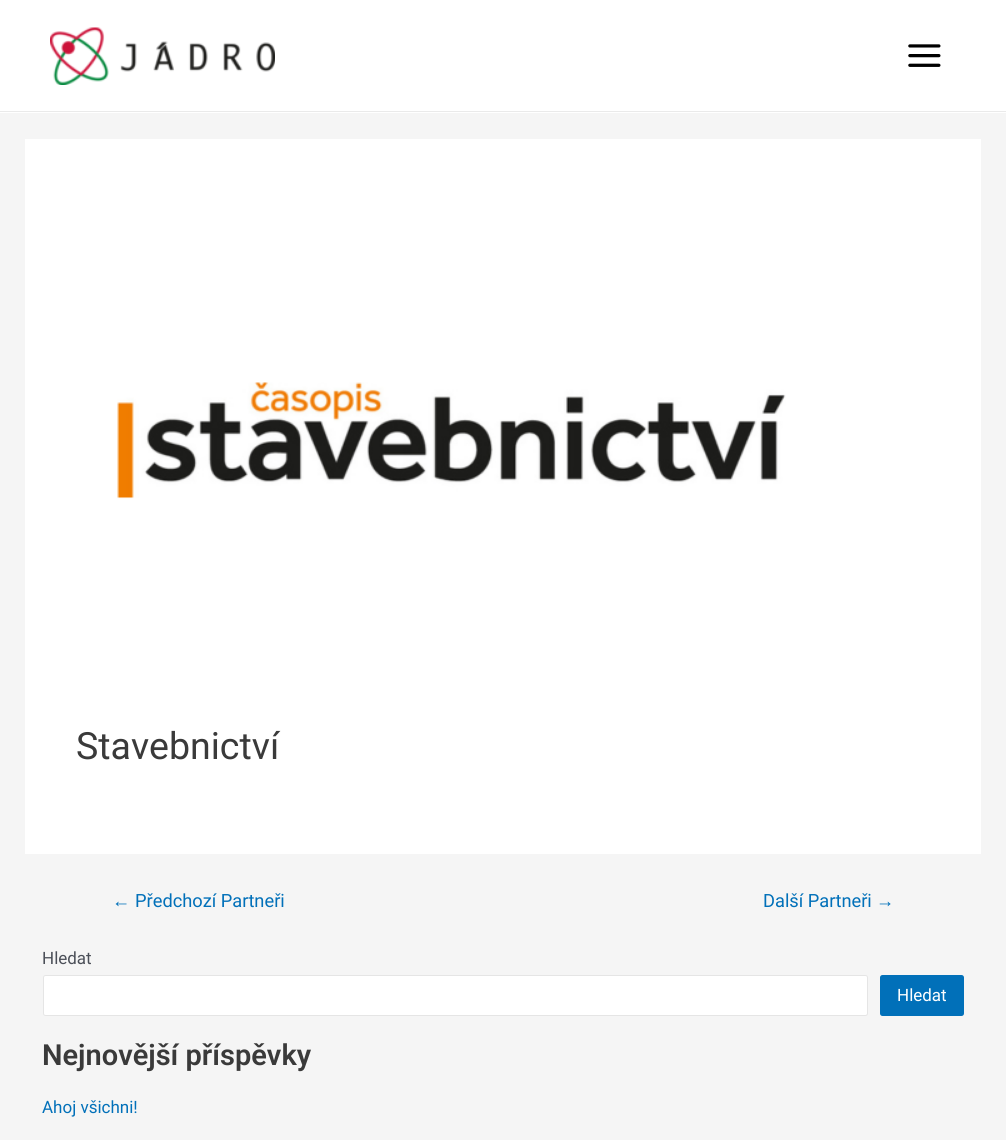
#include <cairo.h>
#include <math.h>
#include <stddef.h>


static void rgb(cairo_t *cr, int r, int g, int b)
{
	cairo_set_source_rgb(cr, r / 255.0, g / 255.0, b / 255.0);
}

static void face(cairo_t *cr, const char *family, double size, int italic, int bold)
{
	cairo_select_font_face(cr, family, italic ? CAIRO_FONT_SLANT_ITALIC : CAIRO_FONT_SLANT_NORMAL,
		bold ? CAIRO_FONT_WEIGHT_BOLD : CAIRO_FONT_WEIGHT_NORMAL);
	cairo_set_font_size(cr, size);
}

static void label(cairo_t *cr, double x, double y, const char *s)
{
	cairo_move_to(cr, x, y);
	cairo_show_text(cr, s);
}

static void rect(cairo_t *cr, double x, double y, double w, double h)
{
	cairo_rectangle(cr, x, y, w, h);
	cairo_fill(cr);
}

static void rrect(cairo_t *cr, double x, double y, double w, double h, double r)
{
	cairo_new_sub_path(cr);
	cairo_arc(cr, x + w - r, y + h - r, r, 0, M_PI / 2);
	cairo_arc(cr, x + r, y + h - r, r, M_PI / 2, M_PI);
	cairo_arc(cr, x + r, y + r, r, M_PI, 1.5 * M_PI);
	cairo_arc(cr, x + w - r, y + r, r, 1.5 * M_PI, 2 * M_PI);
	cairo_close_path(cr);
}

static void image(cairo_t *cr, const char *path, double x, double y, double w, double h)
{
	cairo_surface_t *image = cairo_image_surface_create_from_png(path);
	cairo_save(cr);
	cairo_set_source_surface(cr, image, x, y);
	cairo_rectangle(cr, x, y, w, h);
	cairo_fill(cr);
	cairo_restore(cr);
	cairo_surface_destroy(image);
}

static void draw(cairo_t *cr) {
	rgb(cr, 245, 245, 245);
	cairo_paint(cr);
	rgb(cr, 255, 255, 255);
	rect(cr, 0, 0, 1006, 113);
	rgb(cr, 234, 234, 234);
	rect(cr, 0, 111, 1006, 1);
	image(cr, "image0.png", 50, 27, 225, 58);
	image(cr, "image1.png", 908, 44, 33, 23);
	rgb(cr, 255, 255, 255);
	rect(cr, 25, 139, 956, 715);
	image(cr, "image2.png", 117, 382, 669, 117);
	face(cr, "Roboto", 37.5, 0, 0);
	rgb(cr, 58, 58, 58);
	label(cr, 76, 759, "Stavebnictví");
	face(cr, "Liberation Sans", 18.25, 0, 0);
	rgb(cr, 1, 112, 185);
	label(cr, 112, 907, "←");
	face(cr, "Roboto", 18.25, 0, 0);
	label(cr, 135, 907, "Předchozí Partneři");
	label(cr, 763, 907, "Další Partneři");
	face(cr, "Liberation Sans", 18.25, 0, 0);
	label(cr, 876, 907, "→");
	face(cr, "Roboto", 17, 0, 0);
	rgb(cr, 75, 79, 88);
	label(cr, 42, 964, "Hledat");
	rgb(cr, 255, 255, 255);
	rrect(cr, 43.5, 975.5, 824, 40, 2);
	cairo_fill_preserve(cr);
	rgb(cr, 229, 229, 229);
	cairo_set_line_width(cr, 1);
	cairo_stroke(cr);
	rgb(cr, 1, 112, 185);
	rrect(cr, 880, 975, 84, 41, 2.5);
	cairo_fill(cr);
	rgb(cr, 255, 255, 255);
	label(cr, 897, 1001, "Hledat");
	face(cr, "Roboto SemiBold", 29, 0, 0);
	rgb(cr, 58, 58, 58);
	label(cr, 42, 1065, "Nejnovější příspěvky");
	face(cr, "Roboto", 17, 0, 0);
	rgb(cr, 1, 112, 185);
	label(cr, 42, 1113, "Ahoj všichni!");
}

int main(void) {
	cairo_surface_t *surface = cairo_image_surface_create(CAIRO_FORMAT_RGB24, 1006, 1140);
	cairo_t *cr = cairo_create(surface);
	cairo_font_options_t *options = cairo_font_options_create();
	cairo_font_options_set_hint_metrics(options, CAIRO_HINT_METRICS_OFF);
	cairo_font_options_set_hint_style(options, CAIRO_HINT_STYLE_NONE);
	cairo_set_font_options(cr, options);
	cairo_set_miter_limit(cr, 4);
	draw(cr);
	cairo_surface_write_to_png(surface, "render.png");
	cairo_font_options_destroy(options);
	cairo_destroy(cr);
	cairo_surface_destroy(surface);
	return 0;
}
